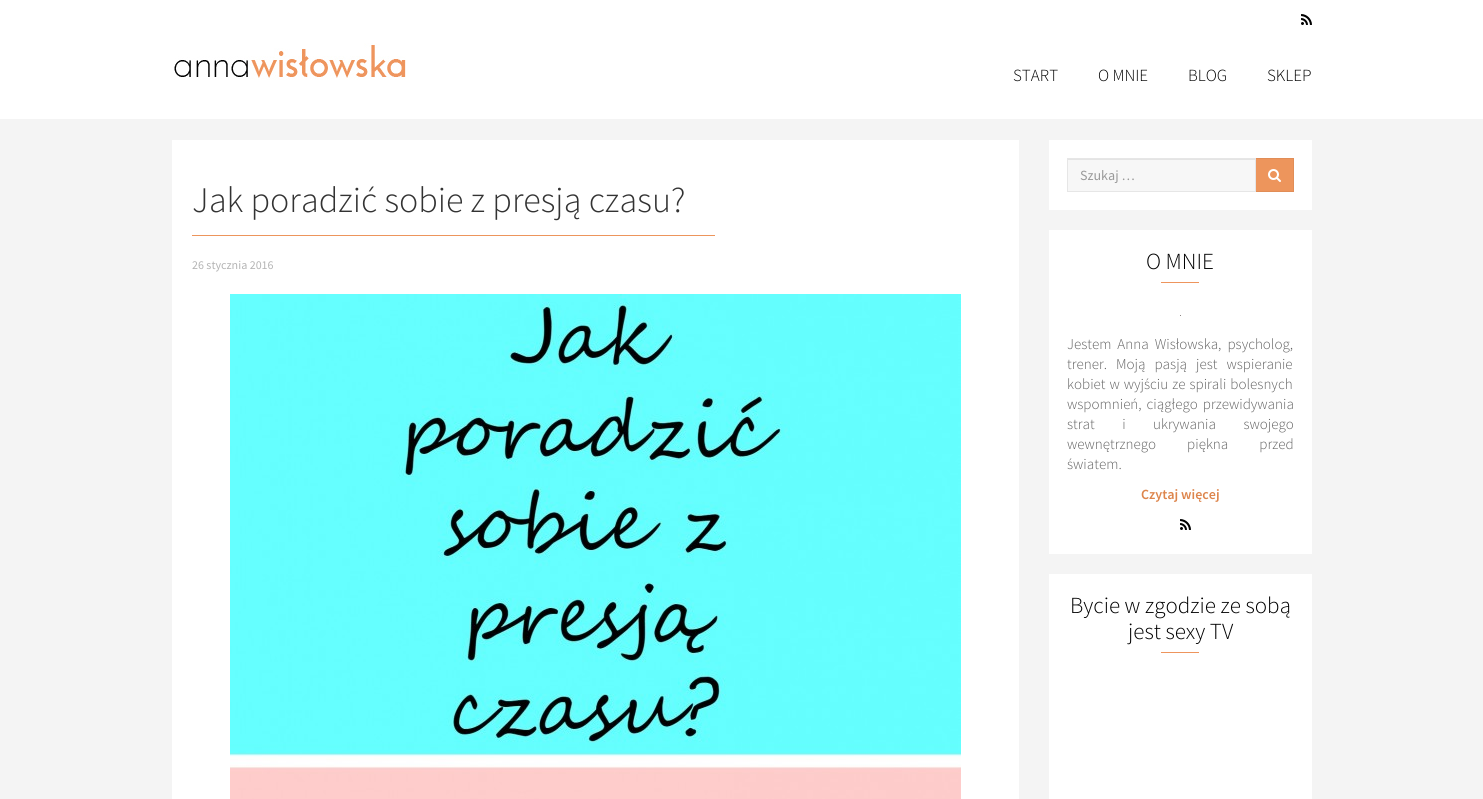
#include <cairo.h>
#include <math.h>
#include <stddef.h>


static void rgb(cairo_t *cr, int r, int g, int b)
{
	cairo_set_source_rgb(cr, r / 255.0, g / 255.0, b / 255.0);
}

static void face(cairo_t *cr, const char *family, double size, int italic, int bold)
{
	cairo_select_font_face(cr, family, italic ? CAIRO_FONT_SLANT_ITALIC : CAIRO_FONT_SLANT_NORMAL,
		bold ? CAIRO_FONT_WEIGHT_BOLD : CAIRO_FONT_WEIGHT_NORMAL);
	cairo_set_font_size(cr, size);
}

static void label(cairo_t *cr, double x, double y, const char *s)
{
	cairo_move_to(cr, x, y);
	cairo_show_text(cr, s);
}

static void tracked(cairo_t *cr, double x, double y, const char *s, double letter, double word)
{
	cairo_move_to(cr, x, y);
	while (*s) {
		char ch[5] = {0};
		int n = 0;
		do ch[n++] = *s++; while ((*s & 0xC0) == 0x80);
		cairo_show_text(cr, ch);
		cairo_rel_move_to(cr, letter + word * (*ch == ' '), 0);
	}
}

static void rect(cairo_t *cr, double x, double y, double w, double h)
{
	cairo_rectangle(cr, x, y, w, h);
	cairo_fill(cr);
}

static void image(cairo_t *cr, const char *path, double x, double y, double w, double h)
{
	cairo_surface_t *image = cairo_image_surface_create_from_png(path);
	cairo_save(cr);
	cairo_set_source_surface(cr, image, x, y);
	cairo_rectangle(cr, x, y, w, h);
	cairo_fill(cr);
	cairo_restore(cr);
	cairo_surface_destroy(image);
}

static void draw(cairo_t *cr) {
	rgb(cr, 244, 244, 244);
	cairo_paint(cr);
	rgb(cr, 255, 255, 255);
	rect(cr, 0, 0, 1483, 119);
	image(cr, "image0.png", 1301, 14, 11, 11);
	image(cr, "image1.png", 174, 43, 232, 37);
	face(cr, "Source Sans Pro Light", 17, 0, 0);
	rgb(cr, 0, 0, 0);
	label(cr, 1013, 81, "START");
	label(cr, 1098, 81, "O MNIE");
	label(cr, 1188, 81, "BLOG");
	label(cr, 1267, 81, "SKLEP");
	rgb(cr, 255, 255, 255);
	rect(cr, 172, 140, 847, 659);
	rgb(cr, 237, 149, 92);
	rect(cr, 192, 235, 523, 1);
	face(cr, "Source Sans Pro Light", 36, 0, 0);
	rgb(cr, 51, 51, 51);
	label(cr, 192, 212, "Jak poradzić sobie z presją czasu?");
	face(cr, "Source Sans Pro", 12, 0, 0);
	rgb(cr, 180, 180, 180);
	label(cr, 192, 269, "26 stycznia 2016");
	image(cr, "image2.png", 230, 294, 731, 505);
	rgb(cr, 255, 255, 255);
	rect(cr, 1049, 140, 263, 70);
	rgb(cr, 247, 247, 247);
	rect(cr, 1068, 160, 187, 31);
	rgb(cr, 228, 228, 228);
	rect(cr, 1068, 159, 187, 1);
	rgb(cr, 237, 149, 92);
	cairo_rectangle(cr, 1255.5, 158.5, 38, 33);
	cairo_fill_preserve(cr);
	rgb(cr, 225, 141, 87);
	cairo_set_line_width(cr, 1);
	cairo_stroke(cr);
	cairo_rectangle(cr, 1067.5, 158.5, 188, 33);
	rgb(cr, 230, 230, 230);
	cairo_stroke(cr);
	face(cr, "Source Sans Pro", 14, 0, 0);
	rgb(cr, 153, 153, 153);
	label(cr, 1080, 180, "Szukaj …");
	image(cr, "image3.png", 1268, 169, 13, 13);
	rgb(cr, 255, 255, 255);
	rect(cr, 1049, 230, 263, 324);
	rgb(cr, 238, 149, 93);
	rect(cr, 1161, 282, 38, 1);
	face(cr, "Source Sans Pro Light", 23, 0, 0);
	rgb(cr, 0, 0, 0);
	label(cr, 1146, 269, "O MNIE");
	rgb(cr, 142, 135, 133);
	rect(cr, 1180, 315, 1, 1);
	face(cr, "Source Sans Pro Light", 15, 0, 0);
	rgb(cr, 97, 97, 97);
	tracked(cr, 1067, 349, "Jestem Anna Wisłowska, psycholog,", 0, 3);
	tracked(cr, 1067, 369, "trener. Moją pasją jest wspieranie", 0, 6);
	tracked(cr, 1067, 389, "kobiet w wyjściu ze spirali bolesnych", 0, 1);
	tracked(cr, 1067, 409, "wspomnień, ciągłego przewidywania", 0, 2);
	tracked(cr, 1067, 429, "strat i ukrywania swojego", 0, 24.5);
	tracked(cr, 1067, 449, "wewnętrznego piękna przed", 0, 28);
	label(cr, 1067, 469, "światem.");
	face(cr, "Source Sans Pro SemiBold", 14, 0, 0);
	rgb(cr, 221, 133, 76);
	label(cr, 1141, 499, "Czytaj więcej");
	image(cr, "image0.png", 1180, 519, 11, 11);
	rgb(cr, 255, 255, 255);
	rect(cr, 1049, 574, 263, 225);
	rgb(cr, 238, 149, 93);
	rect(cr, 1161, 652, 38, 1);
	face(cr, "Source Sans Pro Light", 23, 0, 0);
	rgb(cr, 0, 0, 0);
	label(cr, 1070, 613, "Bycie w zgodzie ze sobą");
	label(cr, 1128, 639, "jest sexy TV");
}

int main(void) {
	cairo_surface_t *surface = cairo_image_surface_create(CAIRO_FORMAT_RGB24, 1483, 799);
	cairo_t *cr = cairo_create(surface);
	cairo_font_options_t *options = cairo_font_options_create();
	cairo_font_options_set_hint_metrics(options, CAIRO_HINT_METRICS_OFF);
	cairo_font_options_set_hint_style(options, CAIRO_HINT_STYLE_NONE);
	cairo_set_font_options(cr, options);
	cairo_set_miter_limit(cr, 4);
	draw(cr);
	cairo_surface_write_to_png(surface, "render.png");
	cairo_font_options_destroy(options);
	cairo_destroy(cr);
	cairo_surface_destroy(surface);
	return 0;
}
